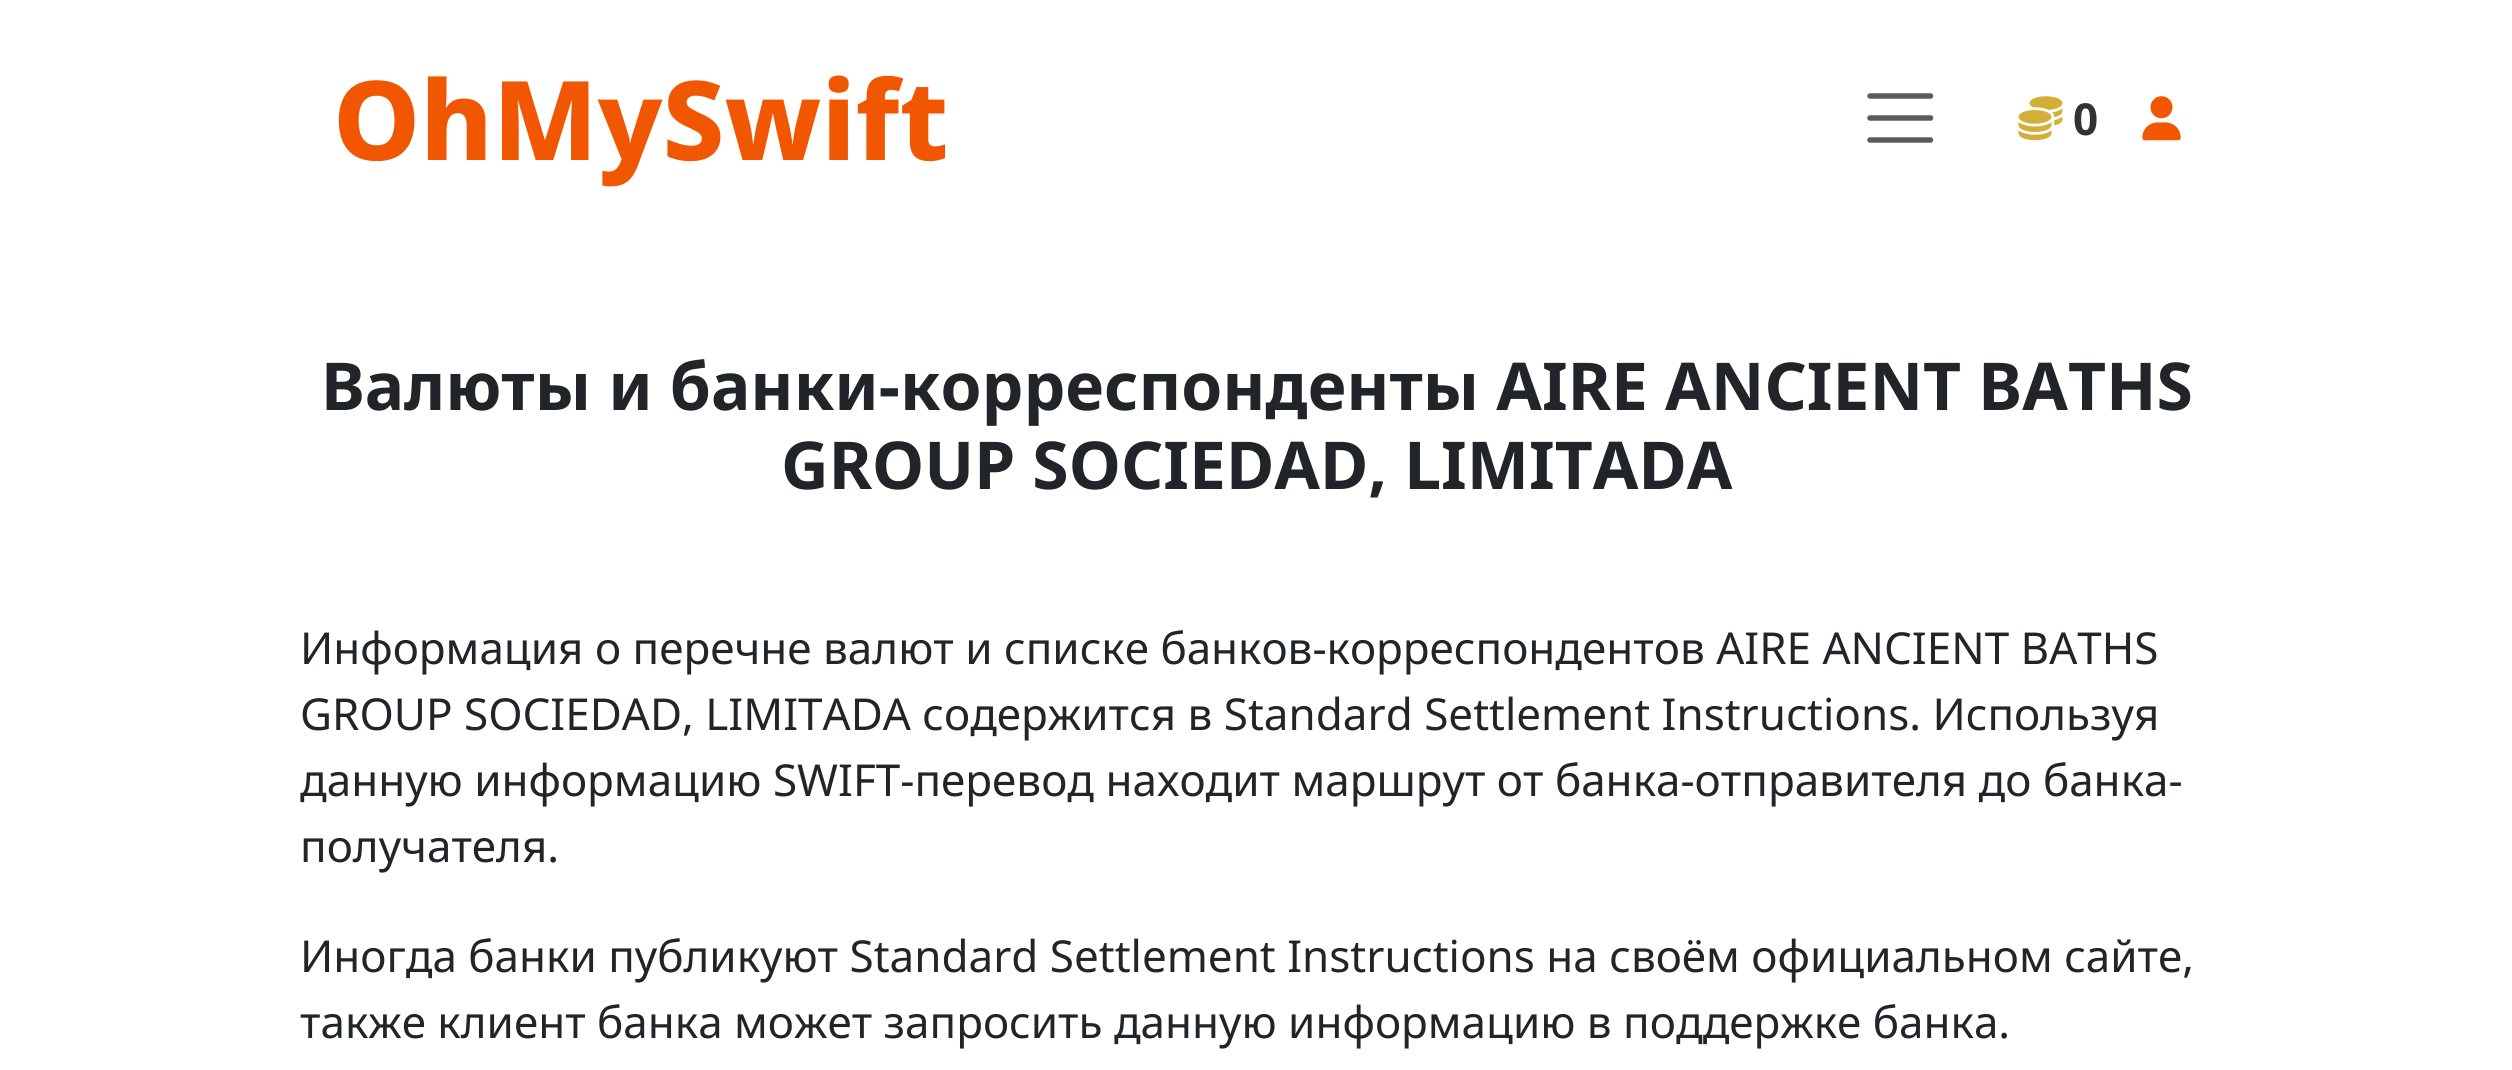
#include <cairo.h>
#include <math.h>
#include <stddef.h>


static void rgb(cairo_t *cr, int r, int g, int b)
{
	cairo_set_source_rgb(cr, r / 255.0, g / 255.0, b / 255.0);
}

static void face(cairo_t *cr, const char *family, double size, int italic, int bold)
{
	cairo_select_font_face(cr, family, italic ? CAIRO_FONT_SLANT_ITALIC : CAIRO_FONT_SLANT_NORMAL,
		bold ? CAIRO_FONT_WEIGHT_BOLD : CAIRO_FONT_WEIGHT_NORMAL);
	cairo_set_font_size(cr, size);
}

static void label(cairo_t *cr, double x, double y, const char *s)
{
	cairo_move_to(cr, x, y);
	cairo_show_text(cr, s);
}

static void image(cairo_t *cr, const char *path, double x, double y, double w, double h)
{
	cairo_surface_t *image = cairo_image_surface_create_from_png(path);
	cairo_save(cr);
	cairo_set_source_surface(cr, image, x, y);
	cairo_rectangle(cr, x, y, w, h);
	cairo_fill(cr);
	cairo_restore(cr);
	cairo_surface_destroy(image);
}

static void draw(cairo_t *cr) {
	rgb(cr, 255, 255, 255);
	cairo_paint(cr);
	face(cr, "Noto Sans ExtraBold", 110, 0, 0);
	rgb(cr, 241, 86, 0);
	label(cr, 333, 160, "OhMySwift");
	cairo_new_path(cr);
	cairo_move_to(cr, 1870, 96);
	cairo_line_to(cr, 1930.5, 96);
	cairo_move_to(cr, 1870, 118);
	cairo_line_to(cr, 1930.5, 118);
	cairo_move_to(cr, 1870, 140);
	cairo_line_to(cr, 1930.5, 140);
	rgb(cr, 89, 92, 95);
	cairo_set_line_width(cr, 5.5);
	cairo_set_line_cap(cr, CAIRO_LINE_CAP_ROUND);
	cairo_stroke(cr);
	image(cr, "image0.png", 2018, 96, 45, 45);
	face(cr, "Noto Sans", 44, 0, 1);
	rgb(cr, 51, 51, 51);
	label(cr, 2073, 135, "0");
	image(cr, "image1.png", 2142, 96, 39, 45);
	face(cr, "Noto Sans", 66, 0, 1);
	rgb(cr, 33, 37, 41);
	label(cr, 321, 410, "Валюты и банки-корреспонденты AIRE ANCIENT BATHS");
	label(cr, 781, 489, "GROUP SOCIEDAD, LIMITADA");
	face(cr, "Noto Sans", 44, 0, 0);
	label(cr, 300, 664, "Информация о перечне валют и списке банков-корреспондентов AIRE ANCIENT BATHS");
	label(cr, 300, 730, "GROUP SOCIEDAD, LIMITADA содержится в Standard Settlement Instructions. Используя");
	label(cr, 300, 796, "данную информацию SWIFT-перевод находит маршрут от банка-отправителя до банка-");
	label(cr, 300, 862, "получателя.");
	label(cr, 300, 972, "Иногда банки публикуют Standard Settlement Instructions на своём официальном сайте,");
	label(cr, 300, 1038, "также клиент банка может запросить данную информацию в поддержке банка.");
}

int main(void) {
	cairo_surface_t *surface = cairo_image_surface_create(CAIRO_FORMAT_RGB24, 2512, 1070);
	cairo_t *cr = cairo_create(surface);
	cairo_font_options_t *options = cairo_font_options_create();
	cairo_font_options_set_hint_metrics(options, CAIRO_HINT_METRICS_OFF);
	cairo_font_options_set_hint_style(options, CAIRO_HINT_STYLE_NONE);
	cairo_set_font_options(cr, options);
	cairo_set_miter_limit(cr, 4);
	draw(cr);
	cairo_surface_write_to_png(surface, "render.png");
	cairo_font_options_destroy(options);
	cairo_destroy(cr);
	cairo_surface_destroy(surface);
	return 0;
}
